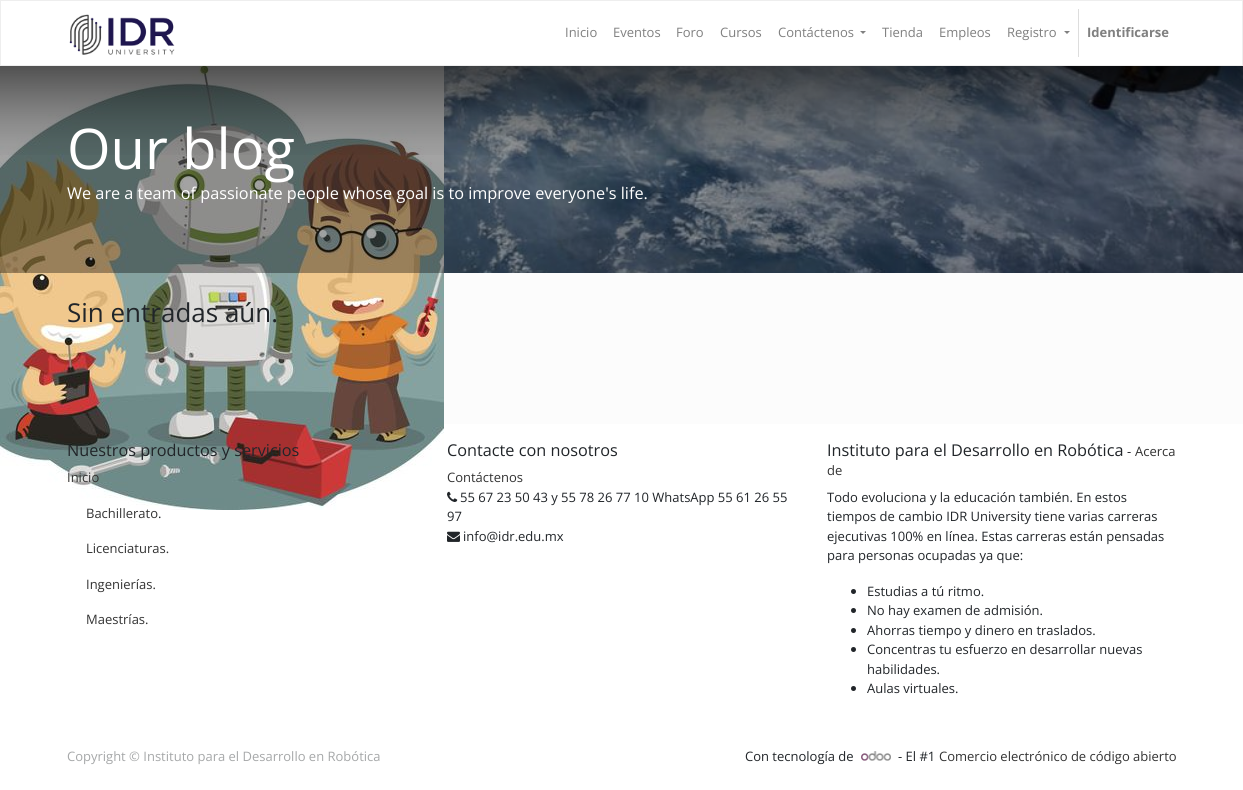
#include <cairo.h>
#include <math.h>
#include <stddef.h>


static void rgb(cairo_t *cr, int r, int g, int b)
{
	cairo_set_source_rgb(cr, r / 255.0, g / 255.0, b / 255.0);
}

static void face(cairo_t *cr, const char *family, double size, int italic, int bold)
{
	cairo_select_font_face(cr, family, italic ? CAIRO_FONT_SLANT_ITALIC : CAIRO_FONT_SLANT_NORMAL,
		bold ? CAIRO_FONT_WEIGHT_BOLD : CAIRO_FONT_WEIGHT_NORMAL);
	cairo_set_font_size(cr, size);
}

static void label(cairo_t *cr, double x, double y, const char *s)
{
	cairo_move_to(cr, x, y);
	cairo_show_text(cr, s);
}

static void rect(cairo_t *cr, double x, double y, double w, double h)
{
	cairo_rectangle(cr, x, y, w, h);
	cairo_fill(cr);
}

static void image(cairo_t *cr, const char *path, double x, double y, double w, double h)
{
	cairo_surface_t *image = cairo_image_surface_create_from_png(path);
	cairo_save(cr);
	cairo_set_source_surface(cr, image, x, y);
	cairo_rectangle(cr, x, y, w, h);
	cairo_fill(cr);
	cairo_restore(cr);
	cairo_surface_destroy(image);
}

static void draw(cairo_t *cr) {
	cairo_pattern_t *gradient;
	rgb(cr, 252, 252, 252);
	cairo_paint(cr);
	rgb(cr, 255, 255, 255);
	cairo_rectangle(cr, 0.5, 0.5, 1242, 65);
	cairo_fill_preserve(cr);
	rgb(cr, 238, 238, 238);
	cairo_set_line_width(cr, 1);
	cairo_stroke(cr);
	image(cr, "image0.png", 69, 14, 106, 41);
	face(cr, "Open Sans", 13, 0, 0);
	rgb(cr, 128, 128, 128);
	label(cr, 565, 37, "Inicio");
	label(cr, 613, 37, "Eventos");
	label(cr, 676, 37, "Foro");
	label(cr, 720, 37, "Cursos");
	label(cr, 778, 37, "Contáctenos");
	cairo_new_path(cr);
	cairo_move_to(cr, 860, 31);
	cairo_line_to(cr, 866, 31);
	cairo_line_to(cr, 863, 34);
	cairo_close_path(cr);
	cairo_fill(cr);
	label(cr, 882, 37, "Tienda");
	label(cr, 939, 37, "Empleos");
	label(cr, 1007, 37, "Registro");
	cairo_new_path(cr);
	cairo_move_to(cr, 1064, 31);
	cairo_line_to(cr, 1070, 31);
	cairo_line_to(cr, 1067, 34);
	cairo_close_path(cr);
	cairo_fill(cr);
	rgb(cr, 221, 221, 221);
	rect(cr, 1078, 9, 1, 48);
	face(cr, "Open Sans", 13, 0, 1);
	rgb(cr, 128, 128, 128);
	label(cr, 1087, 37, "Identificarse");
	image(cr, "image1.png", 444, 66, 799, 207);
	rgb(cr, 255, 255, 255);
	rect(cr, 0, 424, 1243, 366);
	image(cr, "image2.png", 0, 66, 444, 444);
	gradient = cairo_pattern_create_linear(622, 66, 622, 170);
	cairo_pattern_add_color_stop_rgba(gradient, 0, 0, 0, 0, 0.5);
	cairo_pattern_add_color_stop_rgba(gradient, 0.19, 0, 0, 0, 0.37);
	cairo_pattern_add_color_stop_rgba(gradient, 0.34, 0, 0, 0, 0.27);
	cairo_pattern_add_color_stop_rgba(gradient, 0.47, 0, 0, 0, 0.19);
	cairo_pattern_add_color_stop_rgba(gradient, 0.56, 0, 0, 0, 0.14);
	cairo_pattern_add_color_stop_rgba(gradient, 0.65, 0, 0, 0, 0.1);
	cairo_pattern_add_color_stop_rgba(gradient, 0.73, 0, 0, 0, 0.06);
	cairo_pattern_add_color_stop_rgba(gradient, 0.8, 0, 0, 0, 0.04);
	cairo_pattern_add_color_stop_rgba(gradient, 0.86, 0, 0, 0, 0.02);
	cairo_pattern_add_color_stop_rgba(gradient, 0.91, 0, 0, 0, 0.01);
	cairo_pattern_add_color_stop_rgba(gradient, 0.95, 0, 0, 0, 0);
	cairo_pattern_add_color_stop_rgba(gradient, 0.98, 0, 0, 0, 0);
	cairo_pattern_add_color_stop_rgba(gradient, 1, 0, 0, 0, 0);
	cairo_set_source(cr, gradient);
	cairo_pattern_destroy(gradient);
	rect(cr, 0, 66, 1243, 89);
	cairo_set_source_rgba(cr, 0, 0, 0, 0.36);
	rect(cr, 0, 66, 1243, 207);
	face(cr, "Open Sans", 56, 0, 0);
	rgb(cr, 255, 255, 255);
	label(cr, 67, 169, "Our blog");
	face(cr, "Open Sans", 16.25, 0, 0);
	label(cr, 67, 199, "We are a team of passionate people whose goal is to improve everyone's life.");
	face(cr, "Open Sans", 26, 0, 0);
	rgb(cr, 33, 37, 41);
	label(cr, 67, 322, "Sin entradas aún.");
	face(cr, "Open Sans", 16.25, 0, 0);
	label(cr, 67, 456, "Nuestros productos y servicios");
	face(cr, "Open Sans", 13, 0, 0);
	rgb(cr, 51, 51, 51);
	label(cr, 67, 482, "Inicio");
	label(cr, 86, 518, "Bachillerato");
	rgb(cr, 33, 37, 41);
	label(cr, 158, 518, ".");
	rgb(cr, 51, 51, 51);
	label(cr, 86, 553, "Licenciaturas.");
	label(cr, 86, 589, "Ingenierías.");
	label(cr, 86, 624, "Maestrías.");
	face(cr, "Open Sans", 16.25, 0, 0);
	rgb(cr, 33, 37, 41);
	label(cr, 447, 456, "Contacte con nosotros");
	face(cr, "Open Sans", 13, 0, 0);
	rgb(cr, 51, 51, 51);
	label(cr, 447, 482, "Contáctenos");
	image(cr, "image3.png", 447, 491, 11, 11);
	rgb(cr, 33, 37, 41);
	label(cr, 460, 502, "55 67 23 50 43 y 55 78 26 77 10 WhatsApp 55 61 26 55");
	label(cr, 447, 521, "97");
	image(cr, "image4.png", 447, 531, 13, 11);
	label(cr, 463, 541, "info@idr.edu.mx");
	face(cr, "Open Sans", 16.25, 0, 0);
	label(cr, 827, 456, "Instituto para el Desarrollo en Robótica");
	face(cr, "Open Sans", 13, 0, 0);
	label(cr, 1127, 456, "-");
	rgb(cr, 51, 51, 51);
	label(cr, 1135, 456, "Acerca");
	label(cr, 827, 475, "de");
	rgb(cr, 33, 37, 41);
	label(cr, 827, 502, "Todo evoluciona y la educación también. En estos");
	label(cr, 827, 521, "tiempos de cambio IDR University tiene varias carreras");
	label(cr, 827, 541, "ejecutivas 100% en línea. Estas carreras están pensadas");
	label(cr, 827, 560, "para personas ocupadas ya que:");
	cairo_new_path(cr);
	cairo_arc(cr, 853.5, 591.5, 2.5, 0, 2 * M_PI);
	cairo_fill(cr);
	label(cr, 867, 596, "Estudias a tú ritmo.");
	cairo_new_path(cr);
	cairo_arc(cr, 853.5, 610.5, 2.5, 0, 2 * M_PI);
	cairo_fill(cr);
	label(cr, 867, 615, "No hay examen de admisión.");
	cairo_new_path(cr);
	cairo_arc(cr, 853.5, 630.5, 2.5, 0, 2 * M_PI);
	cairo_fill(cr);
	label(cr, 867, 635, "Ahorras tiempo y dinero en traslados.");
	cairo_new_path(cr);
	cairo_arc(cr, 853.5, 649.5, 2.5, 0, 2 * M_PI);
	cairo_fill(cr);
	label(cr, 867, 654, "Concentras tu esfuerzo en desarrollar nuevas");
	label(cr, 867, 674, "habilidades.");
	cairo_new_path(cr);
	cairo_arc(cr, 853.5, 688.5, 2.5, 0, 2 * M_PI);
	cairo_fill(cr);
	label(cr, 867, 693, "Aulas virtuales.");
	rgb(cr, 166, 168, 169);
	label(cr, 67, 761, "Copyright © Instituto para el Desarrollo en Robótica");
	rgb(cr, 33, 37, 41);
	label(cr, 745, 761, "Con tecnología de");
	image(cr, "image5.png", 861, 751, 30, 10);
	label(cr, 898, 761, "- El #1");
	rgb(cr, 51, 51, 51);
	label(cr, 939, 761, "Comercio electrónico de código abierto");
}

int main(void) {
	cairo_surface_t *surface = cairo_image_surface_create(CAIRO_FORMAT_RGB24, 1243, 790);
	cairo_t *cr = cairo_create(surface);
	cairo_font_options_t *options = cairo_font_options_create();
	cairo_font_options_set_hint_metrics(options, CAIRO_HINT_METRICS_OFF);
	cairo_font_options_set_hint_style(options, CAIRO_HINT_STYLE_NONE);
	cairo_set_font_options(cr, options);
	cairo_set_miter_limit(cr, 4);
	draw(cr);
	cairo_surface_write_to_png(surface, "render.png");
	cairo_font_options_destroy(options);
	cairo_destroy(cr);
	cairo_surface_destroy(surface);
	return 0;
}
